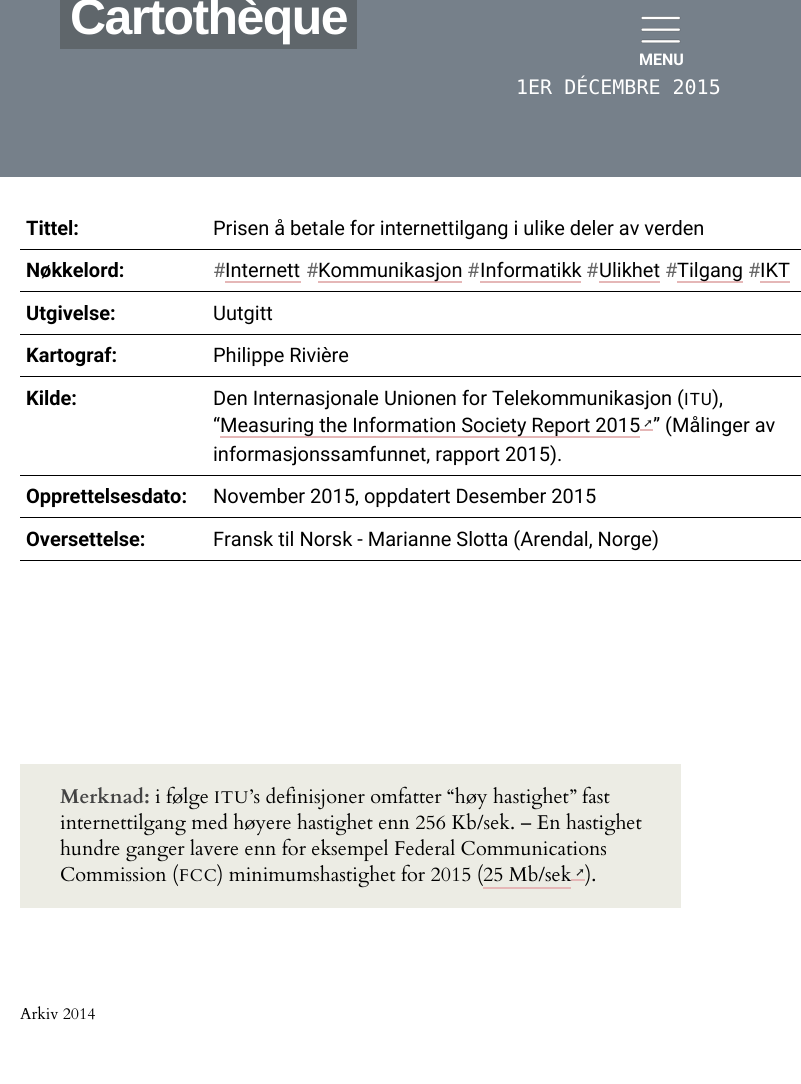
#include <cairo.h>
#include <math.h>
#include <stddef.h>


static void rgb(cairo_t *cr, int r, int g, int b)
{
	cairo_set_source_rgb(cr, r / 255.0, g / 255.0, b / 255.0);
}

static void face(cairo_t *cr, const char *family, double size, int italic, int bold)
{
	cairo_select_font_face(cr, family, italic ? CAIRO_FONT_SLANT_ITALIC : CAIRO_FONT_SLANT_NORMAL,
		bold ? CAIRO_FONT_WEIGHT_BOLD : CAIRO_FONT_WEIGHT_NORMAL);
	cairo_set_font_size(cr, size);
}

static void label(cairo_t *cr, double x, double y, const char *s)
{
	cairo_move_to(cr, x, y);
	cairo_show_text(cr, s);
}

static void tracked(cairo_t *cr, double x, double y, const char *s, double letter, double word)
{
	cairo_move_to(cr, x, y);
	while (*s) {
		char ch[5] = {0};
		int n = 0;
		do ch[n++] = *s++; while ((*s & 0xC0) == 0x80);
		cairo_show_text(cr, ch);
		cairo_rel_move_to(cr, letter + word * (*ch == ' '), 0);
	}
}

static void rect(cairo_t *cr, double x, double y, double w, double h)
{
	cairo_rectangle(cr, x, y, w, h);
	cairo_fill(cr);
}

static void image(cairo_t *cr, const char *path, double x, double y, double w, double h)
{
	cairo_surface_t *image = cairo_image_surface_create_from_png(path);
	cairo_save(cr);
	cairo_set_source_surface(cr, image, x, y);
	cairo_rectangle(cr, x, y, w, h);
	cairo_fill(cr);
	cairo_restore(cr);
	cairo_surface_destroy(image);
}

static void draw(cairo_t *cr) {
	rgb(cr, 255, 255, 255);
	cairo_paint(cr);
	rgb(cr, 118, 128, 138);
	rect(cr, 0, 0, 801, 177);
	rgb(cr, 95, 102, 107);
	rect(cr, 60, 0, 297, 49);
	face(cr, "Liberation Sans", 50, 0, 1);
	rgb(cr, 255, 255, 255);
	tracked(cr, 70, 34, "Cartothèque", -1.6, 0);
	face(cr, "DejaVu Sans Mono", 20, 0, 0);
	label(cr, 516, 94, "1ER DÉCEMBRE 2015");
	face(cr, "Roboto", 20, 0, 1);
	rgb(cr, 0, 0, 0);
	label(cr, 26, 235, "Tittel:");
	rect(cr, 20, 249, 781, 1);
	face(cr, "Roboto", 20, 0, 0);
	label(cr, 213, 235, "Prisen å betale for internettilgang i ulike deler av verden");
	face(cr, "Roboto", 20, 0, 1);
	label(cr, 26, 277, "Nøkkelord:");
	rect(cr, 20, 291, 781, 1);
	face(cr, "Roboto", 20, 0, 0);
	rgb(cr, 102, 102, 102);
	label(cr, 213, 277, "#");
	rgb(cr, 0, 0, 0);
	label(cr, 225, 277, "Internett");
	rgb(cr, 229, 183, 183);
	rect(cr, 225, 281, 76, 2);
	rgb(cr, 102, 102, 102);
	label(cr, 306, 277, "#");
	rgb(cr, 229, 183, 183);
	rect(cr, 318, 281, 144, 2);
	rgb(cr, 0, 0, 0);
	label(cr, 318, 277, "Kommunikasjon");
	rgb(cr, 102, 102, 102);
	label(cr, 467, 277, "#");
	rgb(cr, 229, 183, 183);
	rect(cr, 480, 281, 101, 2);
	rgb(cr, 0, 0, 0);
	label(cr, 480, 277, "Informatikk");
	rgb(cr, 102, 102, 102);
	label(cr, 586, 277, "#");
	rgb(cr, 0, 0, 0);
	label(cr, 599, 277, "Ulikhet");
	rgb(cr, 229, 183, 183);
	rect(cr, 599, 281, 61, 2);
	rgb(cr, 102, 102, 102);
	label(cr, 665, 277, "#");
	rgb(cr, 229, 183, 183);
	rect(cr, 677, 281, 66, 2);
	rgb(cr, 0, 0, 0);
	label(cr, 677, 277, "Tilgang");
	rgb(cr, 102, 102, 102);
	label(cr, 748, 277, "#");
	rgb(cr, 229, 183, 183);
	rect(cr, 760, 281, 30, 2);
	rgb(cr, 0, 0, 0);
	label(cr, 760, 277, "IKT");
	face(cr, "Roboto", 20, 0, 1);
	label(cr, 26, 320, "Utgivelse:");
	rect(cr, 20, 334, 781, 1);
	face(cr, "Roboto", 20, 0, 0);
	label(cr, 213, 320, "Uutgitt");
	face(cr, "Roboto", 20, 0, 1);
	label(cr, 26, 362, "Kartograf:");
	rect(cr, 20, 376, 781, 1);
	face(cr, "Roboto", 20, 0, 0);
	label(cr, 213, 362, "Philippe Rivière");
	face(cr, "Roboto", 20, 0, 1);
	label(cr, 26, 405, "Kilde:");
	rect(cr, 20, 475, 781, 1);
	face(cr, "Roboto", 20, 0, 0);
	label(cr, 213, 405, "Den Internasjonale Unionen for Telekommunikasjon (");
	face(cr, "Roboto", 17, 0, 0);
	tracked(cr, 684, 405, "ITU", 1, 0);
	face(cr, "Roboto", 20, 0, 0);
	label(cr, 712, 405, "),");
	label(cr, 213, 432, "“");
	rgb(cr, 229, 183, 183);
	rect(cr, 220, 436, 420, 2);
	rgb(cr, 0, 0, 0);
	label(cr, 220, 432, "Measuring the Information Society Report 2015");
	rgb(cr, 229, 183, 183);
	rect(cr, 640, 429, 13, 2);
	face(cr, "DejaVu Sans", 12, 0, 0);
	rgb(cr, 26, 26, 26);
	label(cr, 643, 427, "➚");
	face(cr, "Roboto", 20, 0, 0);
	rgb(cr, 0, 0, 0);
	label(cr, 653, 432, "” (Målinger av");
	label(cr, 213, 461, "informasjonssamfunnet, rapport 2015).");
	face(cr, "Roboto", 20, 0, 1);
	label(cr, 26, 503, "Opprettelsesdato:");
	rect(cr, 20, 517, 781, 1);
	face(cr, "Roboto", 20, 0, 0);
	label(cr, 213, 503, "November 2015, oppdatert Desember 2015");
	face(cr, "Roboto", 20, 0, 1);
	label(cr, 26, 546, "Oversettelse:");
	rect(cr, 20, 560, 781, 1);
	face(cr, "Roboto", 20, 0, 0);
	label(cr, 213, 546, "Fransk til Norsk - Marianne Slotta (Arendal, Norge)");
	rgb(cr, 236, 236, 228);
	rect(cr, 20, 764, 661, 144);
	face(cr, "Cardo", 20, 0, 1);
	rgb(cr, 68, 68, 68);
	label(cr, 60, 803, "Merknad:");
	face(cr, "Cardo", 20, 0, 0);
	rgb(cr, 0, 0, 0);
	label(cr, 155, 803, "i følge");
	face(cr, "Cardo", 17, 0, 0);
	tracked(cr, 214, 803, "ITU", 1, 0);
	face(cr, "Cardo", 20, 0, 0);
	label(cr, 249, 803, "’s definisjoner omfatter “høy hastighet” fast");
	label(cr, 60, 829, "internettilgang med høyere hastighet enn 256 Kb/sek. – En hastighet");
	label(cr, 60, 855, "hundre ganger lavere enn for eksempel Federal Communications");
	label(cr, 60, 881, "Commission (");
	face(cr, "Cardo", 17, 0, 0);
	tracked(cr, 179, 881, "FCC", 1, 0);
	face(cr, "Cardo", 20, 0, 0);
	label(cr, 217, 881, ") minimumshastighet for 2015 (");
	rgb(cr, 229, 183, 183);
	rect(cr, 571, 879, 14, 2);
	rgb(cr, 0, 0, 0);
	label(cr, 483, 881, "25 Mb/sek");
	rgb(cr, 229, 183, 183);
	rect(cr, 483, 887, 88, 2);
	face(cr, "DejaVu Sans", 12, 0, 0);
	rgb(cr, 26, 26, 26);
	label(cr, 575, 876, "➚");
	face(cr, "Cardo", 20, 0, 0);
	rgb(cr, 0, 0, 0);
	label(cr, 585, 881, ").");
	face(cr, "Cardo", 16, 0, 0);
	label(cr, 20, 1019, "Arkiv 2014");
	image(cr, "image0.png", 641, 16, 40, 28);
	face(cr, "Roboto", 16, 0, 1);
	rgb(cr, 255, 255, 255);
	label(cr, 639, 65, "MENU");
}

int main(void) {
	cairo_surface_t *surface = cairo_image_surface_create(CAIRO_FORMAT_RGB24, 801, 1084);
	cairo_t *cr = cairo_create(surface);
	cairo_font_options_t *options = cairo_font_options_create();
	cairo_font_options_set_hint_metrics(options, CAIRO_HINT_METRICS_OFF);
	cairo_font_options_set_hint_style(options, CAIRO_HINT_STYLE_NONE);
	cairo_set_font_options(cr, options);
	cairo_set_miter_limit(cr, 4);
	draw(cr);
	cairo_surface_write_to_png(surface, "render.png");
	cairo_font_options_destroy(options);
	cairo_destroy(cr);
	cairo_surface_destroy(surface);
	return 0;
}
